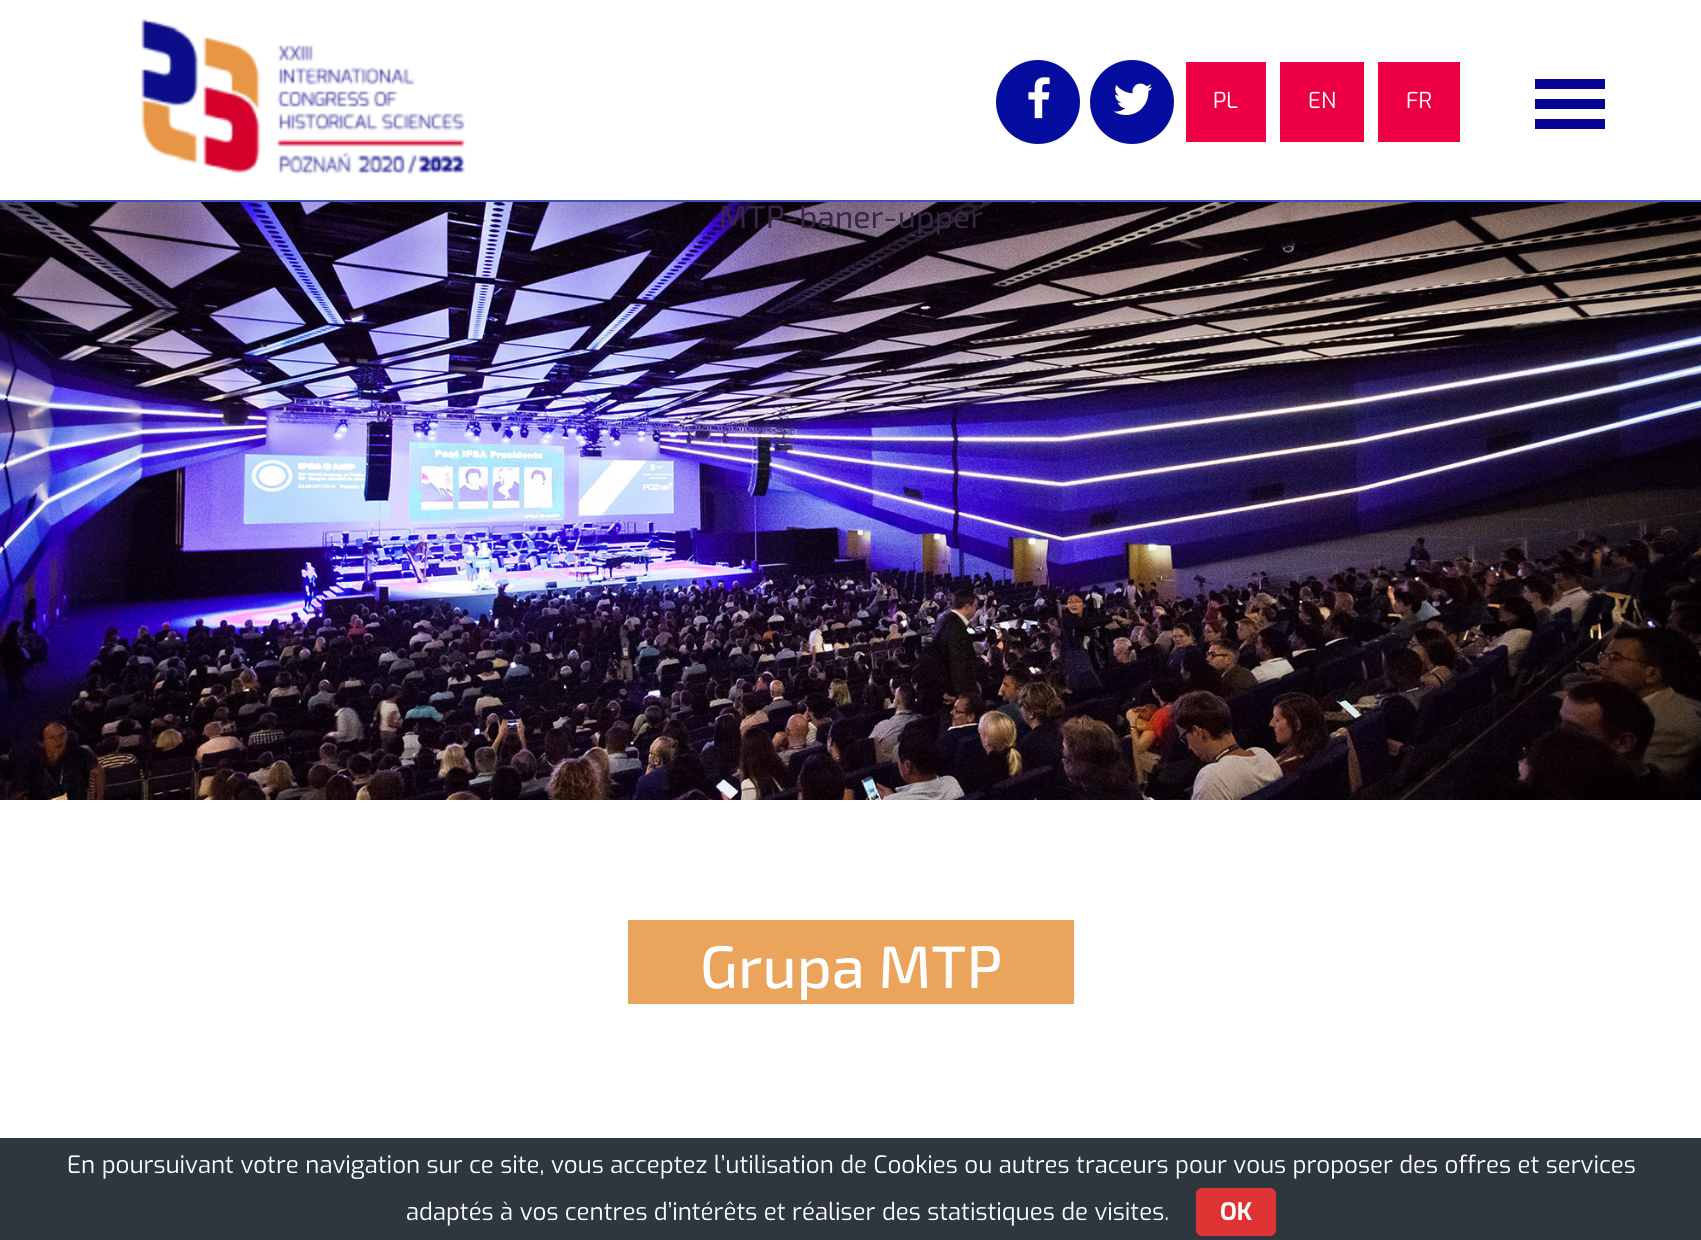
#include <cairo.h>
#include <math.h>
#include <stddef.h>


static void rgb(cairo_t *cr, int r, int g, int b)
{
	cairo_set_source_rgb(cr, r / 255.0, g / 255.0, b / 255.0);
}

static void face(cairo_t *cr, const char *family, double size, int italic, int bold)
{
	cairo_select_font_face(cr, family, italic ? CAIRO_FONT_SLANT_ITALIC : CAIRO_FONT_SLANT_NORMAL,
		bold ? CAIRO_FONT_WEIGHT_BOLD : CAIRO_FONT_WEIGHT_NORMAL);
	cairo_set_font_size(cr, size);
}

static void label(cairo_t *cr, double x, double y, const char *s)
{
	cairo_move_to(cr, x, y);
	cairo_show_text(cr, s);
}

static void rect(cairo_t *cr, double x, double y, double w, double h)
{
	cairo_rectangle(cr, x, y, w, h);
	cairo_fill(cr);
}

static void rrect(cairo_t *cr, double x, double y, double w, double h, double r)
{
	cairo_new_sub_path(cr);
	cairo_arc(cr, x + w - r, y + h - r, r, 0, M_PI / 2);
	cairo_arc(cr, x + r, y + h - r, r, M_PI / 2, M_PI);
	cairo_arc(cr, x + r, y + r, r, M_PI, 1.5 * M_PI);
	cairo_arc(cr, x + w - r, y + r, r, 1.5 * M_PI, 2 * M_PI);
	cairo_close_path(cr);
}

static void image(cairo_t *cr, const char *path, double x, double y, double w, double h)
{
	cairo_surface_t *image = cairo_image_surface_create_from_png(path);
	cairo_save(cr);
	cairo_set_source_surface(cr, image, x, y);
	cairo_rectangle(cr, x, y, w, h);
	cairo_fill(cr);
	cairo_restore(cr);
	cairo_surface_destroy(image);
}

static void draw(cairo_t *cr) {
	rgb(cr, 255, 255, 255);
	cairo_paint(cr);
	rgb(cr, 63, 81, 181);
	rect(cr, 0, 200, 1701, 2);
	image(cr, "image0.png", 141, 19, 324, 156);
	rgb(cr, 5, 13, 158);
	cairo_arc(cr, 1038, 102, 41, 0, 2 * M_PI);
	cairo_fill_preserve(cr);
	cairo_stroke(cr);
	image(cr, "image1.png", 1028, 77, 22, 42);
	cairo_arc(cr, 1132, 102, 41, 0, 2 * M_PI);
	cairo_fill_preserve(cr);
	cairo_stroke(cr);
	image(cr, "image2.png", 1113, 83, 40, 32);
	rgb(cr, 236, 0, 67);
	rect(cr, 1186, 62, 80, 80);
	face(cr, "Exo", 22, 0, 0);
	rgb(cr, 255, 255, 255);
	label(cr, 1213, 108, "PL");
	rgb(cr, 236, 0, 67);
	rect(cr, 1280, 62, 84, 80);
	rgb(cr, 255, 255, 255);
	label(cr, 1308, 108, "EN");
	rgb(cr, 236, 0, 67);
	rect(cr, 1378, 62, 82, 80);
	rgb(cr, 255, 255, 255);
	label(cr, 1406, 108, "FR");
	rgb(cr, 6, 4, 145);
	cairo_new_path(cr);
	cairo_move_to(cr, 1535, 129);
	cairo_line_to(cr, 1605, 129);
	cairo_line_to(cr, 1605, 119);
	cairo_line_to(cr, 1535, 119);
	cairo_close_path(cr);
	cairo_move_to(cr, 1535, 79);
	cairo_line_to(cr, 1535, 89);
	cairo_line_to(cr, 1605, 89);
	cairo_line_to(cr, 1605, 79);
	cairo_close_path(cr);
	cairo_move_to(cr, 1535, 109);
	cairo_line_to(cr, 1605, 109);
	cairo_line_to(cr, 1605, 99);
	cairo_line_to(cr, 1535, 99);
	cairo_close_path(cr);
	cairo_fill(cr);
	image(cr, "image3.png", 0, 202, 1701, 598);
	face(cr, "Exo 2", 32, 0, 0);
	rgb(cr, 55, 39, 69);
	label(cr, 719, 228, "MTP-baner-upper");
	rgb(cr, 234, 164, 92);
	rect(cr, 628, 920, 446, 84);
	face(cr, "Exo 2 Medium", 60, 0, 0);
	rgb(cr, 255, 255, 255);
	label(cr, 700, 988, "Grupa MTP");
	rgb(cr, 46, 54, 63);
	rect(cr, 0, 1138, 1701, 102);
	face(cr, "Exo", 24, 0, 0);
	rgb(cr, 255, 255, 255);
	label(cr, 67, 1173, "En poursuivant votre navigation sur ce site, vous acceptez l’utilisation de Cookies ou autres traceurs pour vous proposer des offres et services");
	label(cr, 406, 1220, "adaptés à vos centres d’intérêts et réaliser des statistiques de visites.");
	rgb(cr, 221, 51, 51);
	rrect(cr, 1196, 1188, 80, 48, 6);
	cairo_fill(cr);
	face(cr, "Exo", 24, 0, 1);
	rgb(cr, 255, 255, 255);
	label(cr, 1220, 1220, "OK");
}

int main(void) {
	cairo_surface_t *surface = cairo_image_surface_create(CAIRO_FORMAT_RGB24, 1701, 1240);
	cairo_t *cr = cairo_create(surface);
	cairo_font_options_t *options = cairo_font_options_create();
	cairo_font_options_set_hint_metrics(options, CAIRO_HINT_METRICS_OFF);
	cairo_font_options_set_hint_style(options, CAIRO_HINT_STYLE_NONE);
	cairo_set_font_options(cr, options);
	cairo_set_miter_limit(cr, 4);
	draw(cr);
	cairo_surface_write_to_png(surface, "render.png");
	cairo_font_options_destroy(options);
	cairo_destroy(cr);
	cairo_surface_destroy(surface);
	return 0;
}
